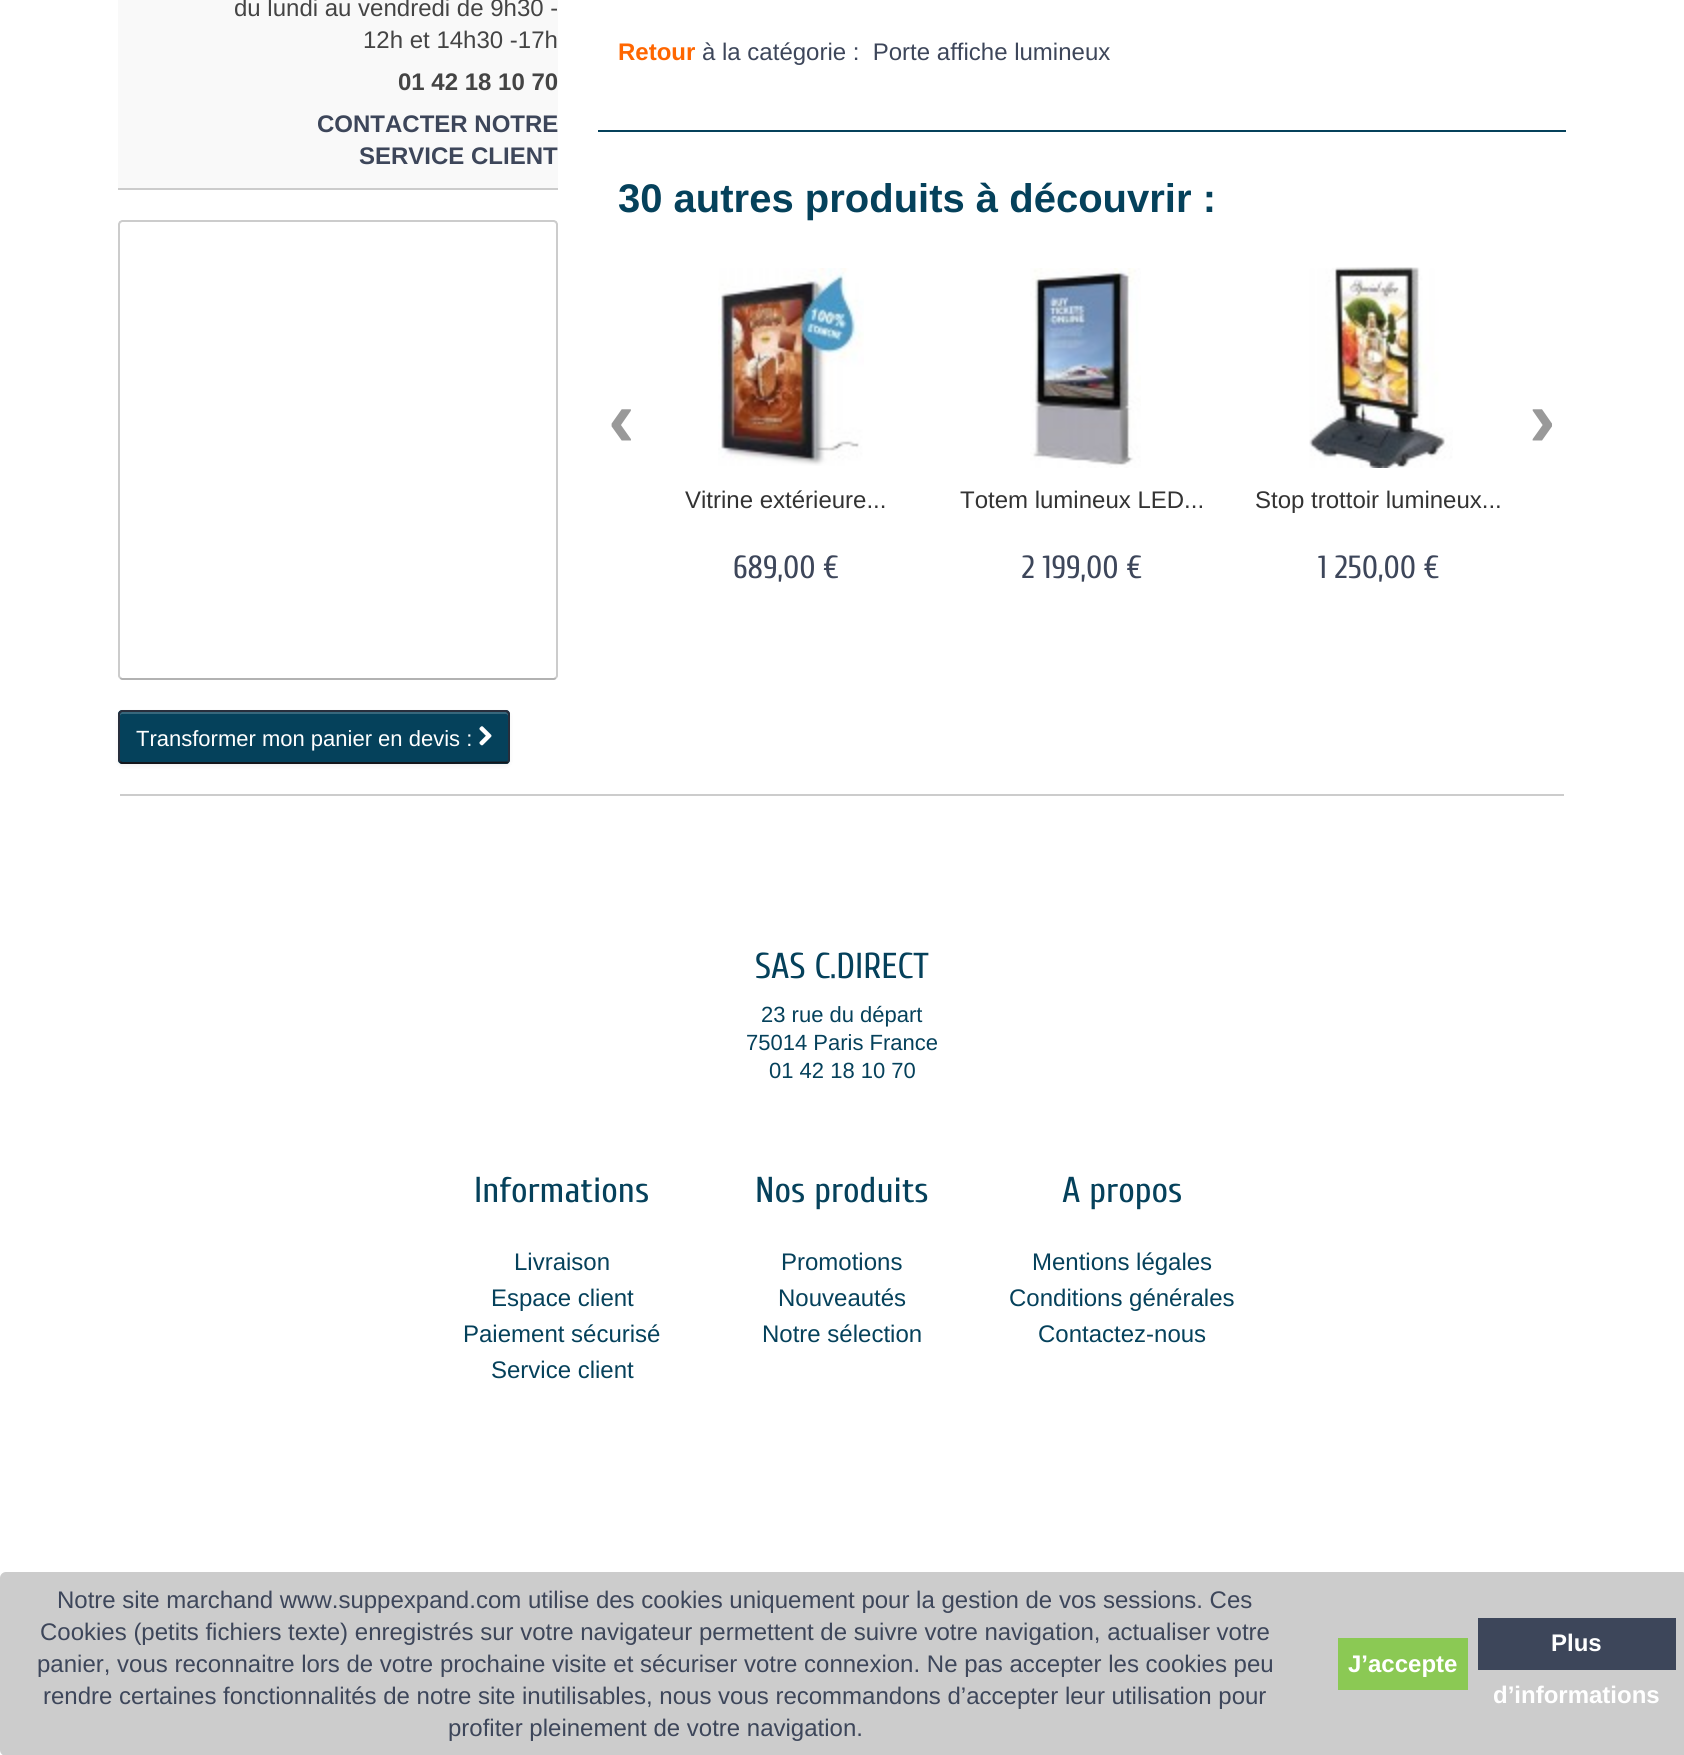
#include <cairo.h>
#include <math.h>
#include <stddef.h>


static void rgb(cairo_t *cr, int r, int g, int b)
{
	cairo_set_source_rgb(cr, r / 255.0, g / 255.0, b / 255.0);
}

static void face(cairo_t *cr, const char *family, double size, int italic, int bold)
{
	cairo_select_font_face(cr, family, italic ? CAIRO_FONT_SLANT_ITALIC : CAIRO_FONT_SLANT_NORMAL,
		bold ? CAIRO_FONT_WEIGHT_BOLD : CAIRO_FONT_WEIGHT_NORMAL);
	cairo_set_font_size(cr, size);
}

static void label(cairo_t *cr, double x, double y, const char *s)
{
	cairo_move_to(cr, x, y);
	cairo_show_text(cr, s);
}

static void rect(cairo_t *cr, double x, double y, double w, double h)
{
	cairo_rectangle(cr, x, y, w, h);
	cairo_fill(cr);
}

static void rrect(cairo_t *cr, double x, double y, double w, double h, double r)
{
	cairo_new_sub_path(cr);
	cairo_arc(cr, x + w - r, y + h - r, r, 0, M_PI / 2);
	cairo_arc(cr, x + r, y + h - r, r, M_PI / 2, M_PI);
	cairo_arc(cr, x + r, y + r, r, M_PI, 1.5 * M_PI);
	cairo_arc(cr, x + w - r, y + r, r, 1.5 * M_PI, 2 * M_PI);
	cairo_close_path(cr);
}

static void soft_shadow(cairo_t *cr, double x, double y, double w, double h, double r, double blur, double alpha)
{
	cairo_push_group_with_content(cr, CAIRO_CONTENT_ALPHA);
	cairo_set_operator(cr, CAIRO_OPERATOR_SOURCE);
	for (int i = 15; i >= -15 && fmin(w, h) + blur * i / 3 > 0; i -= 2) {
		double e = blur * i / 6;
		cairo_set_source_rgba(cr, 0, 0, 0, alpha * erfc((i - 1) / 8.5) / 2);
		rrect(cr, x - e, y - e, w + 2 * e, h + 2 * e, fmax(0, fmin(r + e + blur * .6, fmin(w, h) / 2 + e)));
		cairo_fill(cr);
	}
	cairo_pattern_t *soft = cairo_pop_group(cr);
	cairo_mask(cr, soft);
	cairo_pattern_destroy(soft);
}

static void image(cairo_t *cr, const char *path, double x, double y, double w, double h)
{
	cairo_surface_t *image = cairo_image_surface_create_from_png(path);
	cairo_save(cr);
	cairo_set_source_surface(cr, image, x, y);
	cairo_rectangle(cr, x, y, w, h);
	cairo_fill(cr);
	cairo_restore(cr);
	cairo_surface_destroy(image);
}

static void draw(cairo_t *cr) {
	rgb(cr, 255, 255, 255);
	cairo_paint(cr);
	rgb(cr, 249, 249, 249);
	rect(cr, 118, 0, 440, 188);
	rgb(cr, 204, 204, 204);
	rect(cr, 118, 188, 440, 2);
	face(cr, "Liberation Sans", 24, 0, 0);
	rgb(cr, 68, 68, 68);
	label(cr, 234, 16, "du lundi au vendredi de 9h30 -");
	label(cr, 363, 48, "12h et 14h30 -17h");
	face(cr, "Liberation Sans", 24, 0, 1);
	label(cr, 398, 90, "01 42 18 10 70");
	rgb(cr, 61, 70, 90);
	label(cr, 317, 132, "CONTACTER NOTRE");
	label(cr, 359, 164, "SERVICE CLIENT");
	cairo_new_path(cr);
	cairo_move_to(cr, 556, 678);
	cairo_line_to(cr, 554, 679);
	cairo_line_to(cr, 122, 679);
	cairo_line_to(cr, 120, 678);
	rgb(cr, 178, 178, 178);
	cairo_stroke(cr);
	cairo_new_path(cr);
	cairo_move_to(cr, 120, 678);
	cairo_line_to(cr, 119, 676);
	cairo_line_to(cr, 119, 224);
	cairo_line_to(cr, 120, 222);
	cairo_line_to(cr, 122, 221);
	cairo_line_to(cr, 554, 221);
	cairo_line_to(cr, 556, 222);
	cairo_line_to(cr, 557, 224);
	cairo_line_to(cr, 557, 676);
	cairo_line_to(cr, 556, 678);
	rgb(cr, 204, 204, 204);
	cairo_stroke(cr);
	rgb(cr, 0, 0, 0);
	soft_shadow(cr, 118, 712, 392, 54, 4, 2, 0.05);
	rgb(cr, 5, 65, 91);
	rrect(cr, 118, 710, 392, 54, 4);
	cairo_fill(cr);
	rgb(cr, 55, 103, 124);
	cairo_new_path(cr);
	cairo_move_to(cr, 122, 714);
	cairo_line_to(cr, 506, 714);
	cairo_curve_to(cr, 507, 714, 508, 715, 508, 716);
	cairo_line_to(cr, 508, 714);
	cairo_curve_to(cr, 508, 713, 507, 712, 506, 712);
	cairo_line_to(cr, 122, 712);
	cairo_curve_to(cr, 121, 712, 120, 713, 120, 714);
	cairo_line_to(cr, 120, 716);
	cairo_curve_to(cr, 120, 715, 121, 714, 122, 714);
	cairo_close_path(cr);
	cairo_fill(cr);
	cairo_new_path(cr);
	cairo_move_to(cr, 508, 762);
	cairo_line_to(cr, 507.5, 762.5);
	cairo_line_to(cr, 442, 763);
	cairo_line_to(cr, 122, 763);
	cairo_line_to(cr, 120, 762);
	rgb(cr, 20, 23, 29);
	cairo_stroke(cr);
	cairo_new_path(cr);
	cairo_move_to(cr, 120, 762);
	cairo_line_to(cr, 119, 760);
	cairo_line_to(cr, 119, 714);
	cairo_line_to(cr, 120, 712);
	cairo_line_to(cr, 122, 711);
	cairo_line_to(cr, 506, 711);
	cairo_line_to(cr, 508, 712);
	cairo_line_to(cr, 509, 714);
	cairo_line_to(cr, 509, 760);
	cairo_line_to(cr, 508, 762);
	rgb(cr, 40, 46, 60);
	cairo_stroke(cr);
	face(cr, "Liberation Sans", 22, 0, 0);
	rgb(cr, 255, 255, 255);
	label(cr, 136, 746, "Transformer mon panier en devis :");
	image(cr, "image0.png", 479, 726, 13, 20);
	rgb(cr, 5, 65, 91);
	rect(cr, 598, 130, 968, 2);
	face(cr, "Liberation Sans", 24, 0, 1);
	rgb(cr, 255, 102, 0);
	label(cr, 618, 60, "Retour");
	face(cr, "Liberation Sans", 24, 0, 0);
	rgb(cr, 61, 70, 90);
	label(cr, 702, 60, "à la catégorie :  Porte affiche lumineux");
	face(cr, "Liberation Sans", 40, 0, 1);
	rgb(cr, 5, 65, 91);
	label(cr, 618, 212, "30 autres produits à découvrir :");
	face(cr, "Liberation Sans", 80, 0, 1);
	rgb(cr, 153, 153, 153);
	label(cr, 608, 446, "‹");
	label(cr, 1529, 446, "›");
	image(cr, "image1.png", 718, 268, 146, 198);
	face(cr, "Liberation Sans", 24, 0, 0);
	rgb(cr, 51, 51, 51);
	label(cr, 685, 508, "Vitrine extérieure...");
	face(cr, "Cuprum", 32, 0, 0);
	rgb(cr, 61, 70, 90);
	label(cr, 733, 578, "689,00 €");
	image(cr, "image2.png", 1030, 268, 111, 200);
	face(cr, "Liberation Sans", 24, 0, 0);
	rgb(cr, 51, 51, 51);
	label(cr, 960, 508, "Totem lumineux LED...");
	face(cr, "Cuprum", 32, 0, 0);
	rgb(cr, 61, 70, 90);
	label(cr, 1022, 578, "2 199,00 €");
	image(cr, "image3.png", 1309, 267, 144, 201);
	face(cr, "Liberation Sans", 24, 0, 0);
	rgb(cr, 51, 51, 51);
	label(cr, 1255, 508, "Stop trottoir lumineux...");
	face(cr, "Cuprum", 32, 0, 0);
	rgb(cr, 61, 70, 90);
	label(cr, 1318, 578, "1 250,00 €");
	rgb(cr, 204, 204, 204);
	rect(cr, 120, 794, 1444, 2);
	face(cr, "Cuprum", 36, 0, 0);
	rgb(cr, 5, 65, 91);
	label(cr, 755, 978, "SAS C.DIRECT");
	face(cr, "Liberation Sans", 22, 0, 0);
	label(cr, 761, 1022, "23 rue du départ");
	label(cr, 746, 1050, "75014 Paris France");
	label(cr, 769, 1078, "01 42 18 10 70");
	face(cr, "Cuprum", 36, 0, 0);
	label(cr, 474, 1202, "Informations");
	face(cr, "Liberation Sans", 24, 0, 0);
	label(cr, 514, 1270, "Livraison");
	label(cr, 491, 1306, "Espace client");
	label(cr, 463, 1342, "Paiement sécurisé");
	label(cr, 491, 1378, "Service client");
	face(cr, "Cuprum", 36, 0, 0);
	label(cr, 755, 1202, "Nos produits");
	face(cr, "Liberation Sans", 24, 0, 0);
	label(cr, 781, 1270, "Promotions");
	label(cr, 778, 1306, "Nouveautés");
	label(cr, 762, 1342, "Notre sélection");
	face(cr, "Cuprum", 36, 0, 0);
	label(cr, 1062, 1202, "A propos");
	face(cr, "Liberation Sans", 24, 0, 0);
	label(cr, 1032, 1270, "Mentions légales");
	label(cr, 1009, 1306, "Conditions générales");
	label(cr, 1038, 1342, "Contactez-nous");
	rgb(cr, 204, 204, 204);
	rrect(cr, 1, 1573, 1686, 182, 5);
	cairo_fill_preserve(cr);
	cairo_stroke(cr);
	rgb(cr, 61, 70, 90);
	label(cr, 57, 1608, "Notre site marchand www.suppexpand.com utilise des cookies uniquement pour la gestion de vos sessions. Ces");
	label(cr, 40, 1640, "Cookies (petits fichiers texte) enregistrés sur votre navigateur permettent de suivre votre navigation, actualiser votre");
	label(cr, 37, 1672, "panier, vous reconnaitre lors de votre prochaine visite et sécuriser votre connexion. Ne pas accepter les cookies peu");
	label(cr, 43, 1704, "rendre certaines fonctionnalités de notre site inutilisables, nous vous recommandons d’accepter leur utilisation pour");
	label(cr, 448, 1736, "profiter pleinement de votre navigation.");
	rgb(cr, 139, 201, 84);
	rect(cr, 1338, 1638, 130, 52);
	face(cr, "Liberation Sans", 24, 0, 1);
	rgb(cr, 255, 255, 255);
	label(cr, 1348, 1672, "J’accepte");
	rgb(cr, 61, 70, 90);
	rect(cr, 1478, 1618, 198, 52);
	rgb(cr, 255, 255, 255);
	label(cr, 1551, 1651, "Plus");
	label(cr, 1493, 1703, "d’informations");
}

int main(void) {
	cairo_surface_t *surface = cairo_image_surface_create(CAIRO_FORMAT_RGB24, 1684, 1755);
	cairo_t *cr = cairo_create(surface);
	cairo_font_options_t *options = cairo_font_options_create();
	cairo_font_options_set_hint_metrics(options, CAIRO_HINT_METRICS_OFF);
	cairo_font_options_set_hint_style(options, CAIRO_HINT_STYLE_NONE);
	cairo_set_font_options(cr, options);
	cairo_set_miter_limit(cr, 4);
	draw(cr);
	cairo_surface_write_to_png(surface, "render.png");
	cairo_font_options_destroy(options);
	cairo_destroy(cr);
	cairo_surface_destroy(surface);
	return 0;
}
